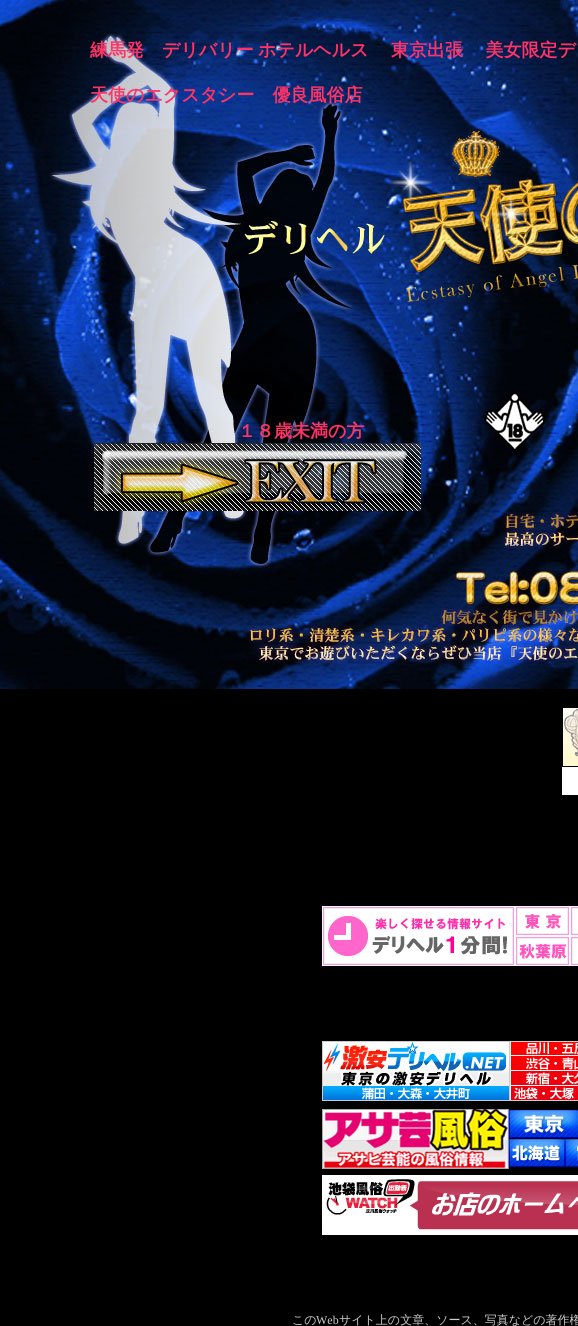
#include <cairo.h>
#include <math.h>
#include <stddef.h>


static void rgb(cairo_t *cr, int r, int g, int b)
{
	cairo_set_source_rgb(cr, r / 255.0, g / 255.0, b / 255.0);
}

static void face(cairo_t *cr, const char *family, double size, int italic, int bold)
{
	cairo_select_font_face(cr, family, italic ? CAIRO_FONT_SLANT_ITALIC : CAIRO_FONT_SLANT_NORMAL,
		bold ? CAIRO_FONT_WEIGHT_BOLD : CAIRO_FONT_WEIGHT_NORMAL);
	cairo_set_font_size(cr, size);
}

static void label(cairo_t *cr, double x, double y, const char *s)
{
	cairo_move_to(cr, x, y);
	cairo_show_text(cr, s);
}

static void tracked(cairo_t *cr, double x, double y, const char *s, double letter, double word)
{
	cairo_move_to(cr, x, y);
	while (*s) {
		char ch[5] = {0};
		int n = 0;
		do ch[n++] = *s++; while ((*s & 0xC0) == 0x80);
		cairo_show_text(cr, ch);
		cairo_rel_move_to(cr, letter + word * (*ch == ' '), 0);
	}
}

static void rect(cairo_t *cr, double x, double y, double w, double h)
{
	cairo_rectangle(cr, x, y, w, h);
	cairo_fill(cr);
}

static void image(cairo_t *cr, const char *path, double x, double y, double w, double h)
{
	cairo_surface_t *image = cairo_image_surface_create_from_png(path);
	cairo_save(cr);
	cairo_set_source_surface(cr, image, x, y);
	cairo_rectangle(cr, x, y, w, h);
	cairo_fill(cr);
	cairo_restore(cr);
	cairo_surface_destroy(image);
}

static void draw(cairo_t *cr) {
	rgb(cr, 0, 0, 0);
	cairo_paint(cr);
	image(cr, "image0.png", 0, 0, 578, 689);
	face(cr, "WenQuanYi Zen Hei", 18, 0, 1);
	rgb(cr, 255, 51, 102);
	tracked(cr, 90, 56, "練馬発　デリバリー ホテルヘルス 　東京出張 　美女限定デ", 0, -1);
	label(cr, 90, 101, "天使のエクスタシー　優良風俗店");
	label(cr, 238, 437, "１８歳未満の方");
	image(cr, "image1.png", 94, 443, 327, 68);
	image(cr, "image2.png", 563, 708, 15, 58);
	rgb(cr, 255, 255, 255);
	rect(cr, 562, 767, 16, 28);
	image(cr, "image3.png", 322, 906, 193, 60);
	image(cr, "image4.png", 515, 906, 55, 30);
	image(cr, "image5.png", 570, 906, 8, 30);
	image(cr, "image6.png", 515, 936, 55, 30);
	image(cr, "image5.png", 570, 936, 8, 30);
	image(cr, "image7.png", 322, 1041, 256, 60);
	image(cr, "image8.png", 322, 1109, 256, 60);
	image(cr, "image9.png", 322, 1175, 256, 60);
	face(cr, "WenQuanYi Zen Hei Medium", 12, 0, 0);
	rgb(cr, 204, 204, 204);
	label(cr, 292, 1324, "この");
	face(cr, "Liberation Serif", 12, 0, 0);
	label(cr, 316, 1324, "Web");
	face(cr, "WenQuanYi Zen Hei Medium", 12, 0, 0);
	label(cr, 339, 1324, "サイト上の文章、ソース、写真などの著作権");
}

int main(void) {
	cairo_surface_t *surface = cairo_image_surface_create(CAIRO_FORMAT_RGB24, 578, 1326);
	cairo_t *cr = cairo_create(surface);
	cairo_font_options_t *options = cairo_font_options_create();
	cairo_font_options_set_hint_metrics(options, CAIRO_HINT_METRICS_OFF);
	cairo_font_options_set_hint_style(options, CAIRO_HINT_STYLE_NONE);
	cairo_set_font_options(cr, options);
	cairo_set_miter_limit(cr, 4);
	draw(cr);
	cairo_surface_write_to_png(surface, "render.png");
	cairo_font_options_destroy(options);
	cairo_destroy(cr);
	cairo_surface_destroy(surface);
	return 0;
}
